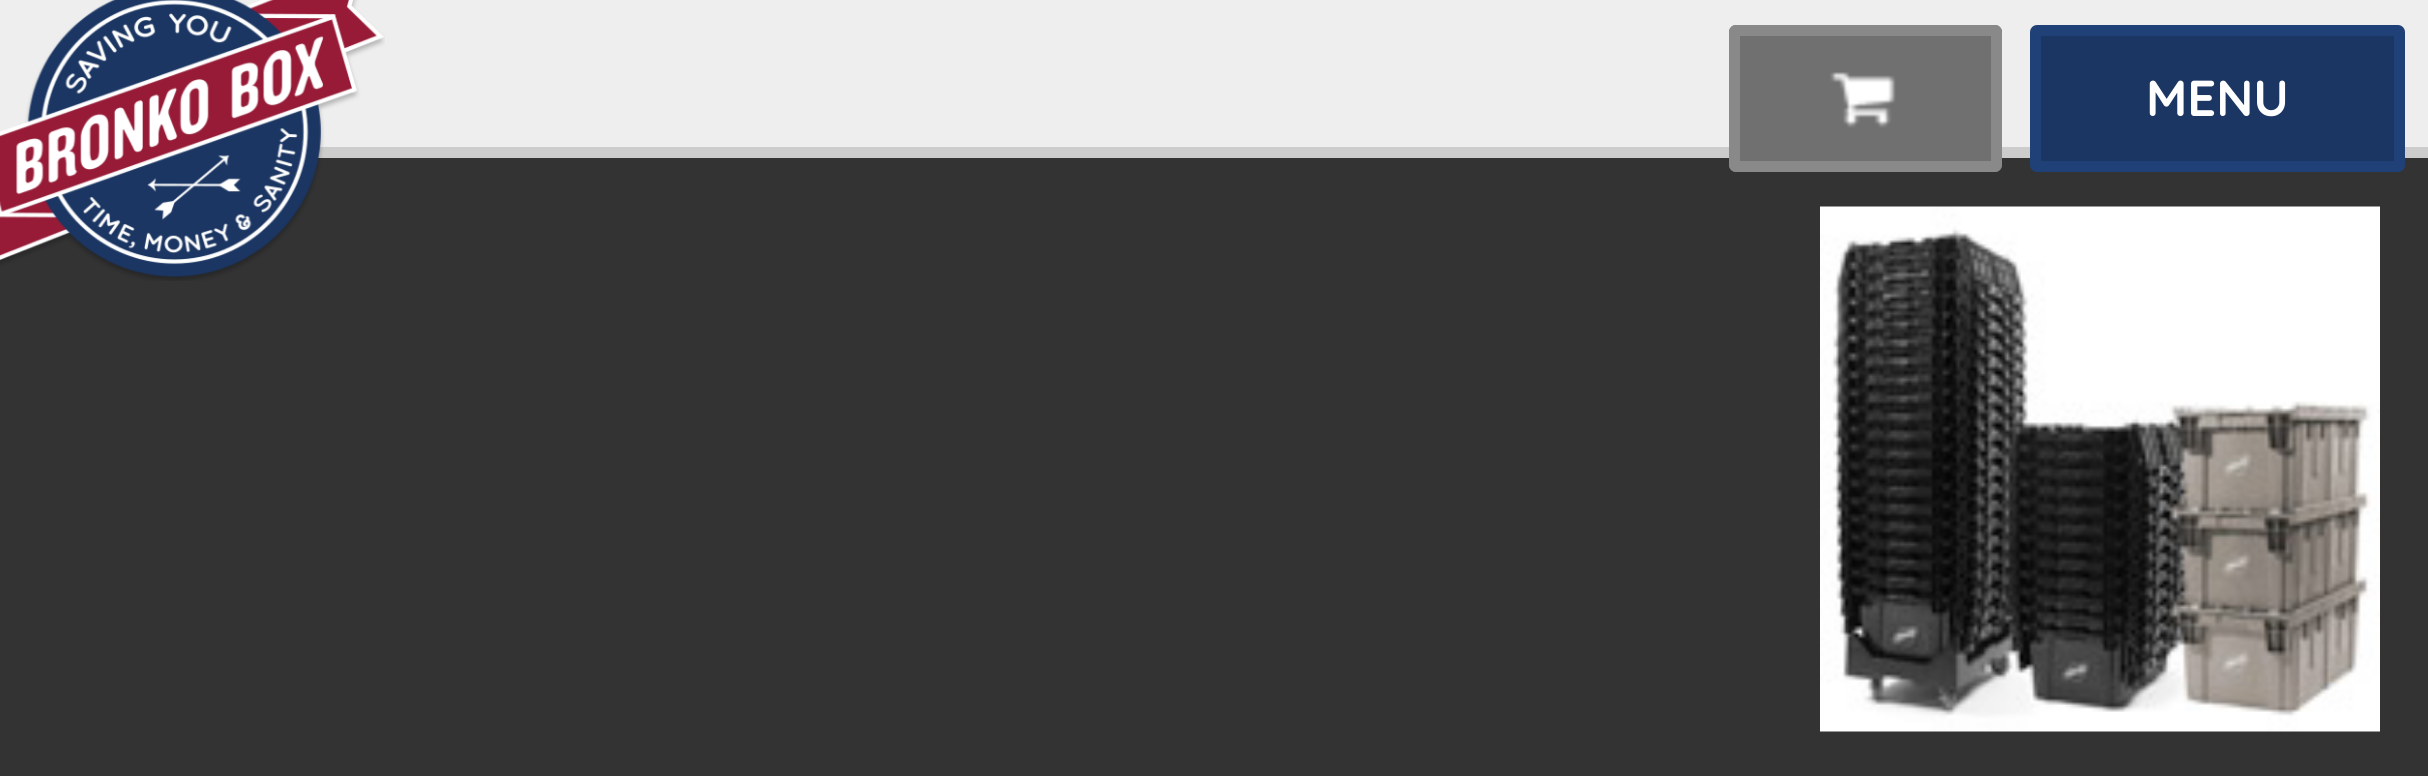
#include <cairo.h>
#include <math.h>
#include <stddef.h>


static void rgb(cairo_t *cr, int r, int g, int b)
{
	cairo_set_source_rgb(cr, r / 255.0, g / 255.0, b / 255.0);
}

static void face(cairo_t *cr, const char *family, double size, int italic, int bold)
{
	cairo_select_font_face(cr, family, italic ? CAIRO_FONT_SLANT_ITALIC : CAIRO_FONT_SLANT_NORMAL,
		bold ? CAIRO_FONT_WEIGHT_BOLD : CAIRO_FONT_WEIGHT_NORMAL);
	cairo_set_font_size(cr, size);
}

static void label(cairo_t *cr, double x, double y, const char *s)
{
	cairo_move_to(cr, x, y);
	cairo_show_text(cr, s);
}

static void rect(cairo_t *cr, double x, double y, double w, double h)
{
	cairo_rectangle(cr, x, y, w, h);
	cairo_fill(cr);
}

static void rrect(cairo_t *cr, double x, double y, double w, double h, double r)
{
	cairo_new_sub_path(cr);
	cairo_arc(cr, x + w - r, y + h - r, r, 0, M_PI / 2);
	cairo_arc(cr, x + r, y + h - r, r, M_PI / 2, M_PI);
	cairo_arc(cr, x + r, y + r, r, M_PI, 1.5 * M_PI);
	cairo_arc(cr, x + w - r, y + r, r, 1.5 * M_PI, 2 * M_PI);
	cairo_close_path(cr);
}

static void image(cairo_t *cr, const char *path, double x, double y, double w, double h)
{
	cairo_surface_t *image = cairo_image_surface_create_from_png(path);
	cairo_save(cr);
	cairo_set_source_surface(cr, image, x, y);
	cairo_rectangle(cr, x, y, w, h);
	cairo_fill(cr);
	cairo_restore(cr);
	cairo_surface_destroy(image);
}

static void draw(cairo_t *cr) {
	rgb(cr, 51, 51, 51);
	cairo_paint(cr);
	rgb(cr, 238, 238, 238);
	rect(cr, 0, 0, 2428, 147);
	rgb(cr, 204, 204, 204);
	rect(cr, 317, 147, 2111, 11);
	image(cr, "image0.png", 0, 0, 385, 281);
	rgb(cr, 112, 112, 112);
	rrect(cr, 1729, 25, 273, 147, 7);
	cairo_fill(cr);
	image(cr, "image1.png", 1830, 72, 66, 56);
	rrect(cr, 1734.5, 30.5, 262, 136, 1.5);
	rgb(cr, 137, 137, 137);
	cairo_set_line_width(cr, 11);
	cairo_stroke(cr);
	rgb(cr, 27, 54, 99);
	rrect(cr, 2035.5, 30.5, 364, 136, 1.5);
	cairo_fill_preserve(cr);
	rgb(cr, 32, 65, 119);
	cairo_stroke(cr);
	face(cr, "Quicksand", 50.5, 0, 1);
	rgb(cr, 255, 255, 255);
	label(cr, 2146, 116, "MENU");
	image(cr, "image2.png", 1820, 206, 560, 526);
}

int main(void) {
	cairo_surface_t *surface = cairo_image_surface_create(CAIRO_FORMAT_RGB24, 2428, 776);
	cairo_t *cr = cairo_create(surface);
	cairo_font_options_t *options = cairo_font_options_create();
	cairo_font_options_set_hint_metrics(options, CAIRO_HINT_METRICS_OFF);
	cairo_font_options_set_hint_style(options, CAIRO_HINT_STYLE_NONE);
	cairo_set_font_options(cr, options);
	cairo_set_miter_limit(cr, 4);
	draw(cr);
	cairo_surface_write_to_png(surface, "render.png");
	cairo_font_options_destroy(options);
	cairo_destroy(cr);
	cairo_surface_destroy(surface);
	return 0;
}
